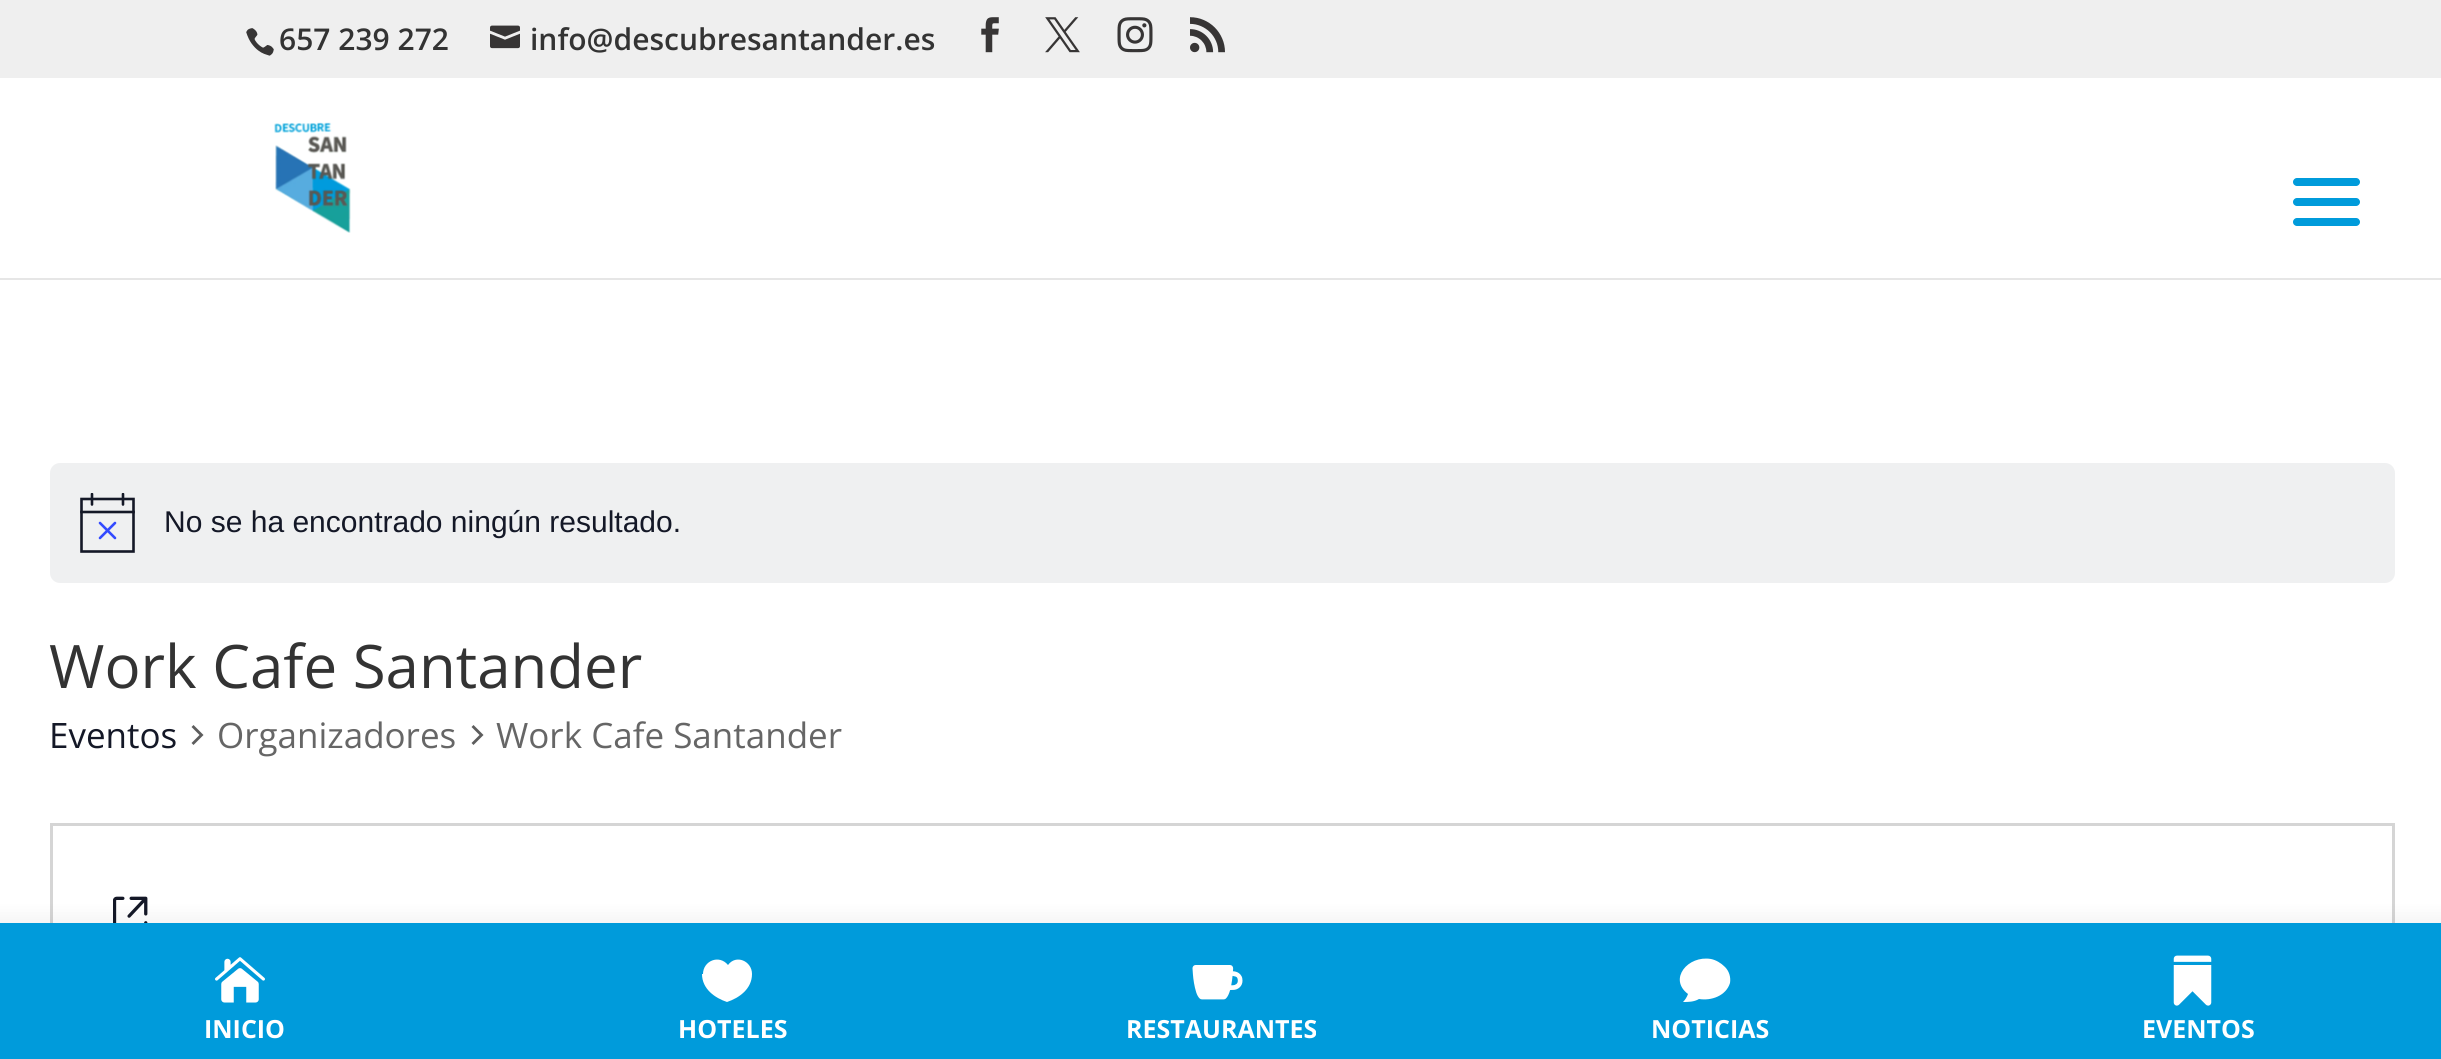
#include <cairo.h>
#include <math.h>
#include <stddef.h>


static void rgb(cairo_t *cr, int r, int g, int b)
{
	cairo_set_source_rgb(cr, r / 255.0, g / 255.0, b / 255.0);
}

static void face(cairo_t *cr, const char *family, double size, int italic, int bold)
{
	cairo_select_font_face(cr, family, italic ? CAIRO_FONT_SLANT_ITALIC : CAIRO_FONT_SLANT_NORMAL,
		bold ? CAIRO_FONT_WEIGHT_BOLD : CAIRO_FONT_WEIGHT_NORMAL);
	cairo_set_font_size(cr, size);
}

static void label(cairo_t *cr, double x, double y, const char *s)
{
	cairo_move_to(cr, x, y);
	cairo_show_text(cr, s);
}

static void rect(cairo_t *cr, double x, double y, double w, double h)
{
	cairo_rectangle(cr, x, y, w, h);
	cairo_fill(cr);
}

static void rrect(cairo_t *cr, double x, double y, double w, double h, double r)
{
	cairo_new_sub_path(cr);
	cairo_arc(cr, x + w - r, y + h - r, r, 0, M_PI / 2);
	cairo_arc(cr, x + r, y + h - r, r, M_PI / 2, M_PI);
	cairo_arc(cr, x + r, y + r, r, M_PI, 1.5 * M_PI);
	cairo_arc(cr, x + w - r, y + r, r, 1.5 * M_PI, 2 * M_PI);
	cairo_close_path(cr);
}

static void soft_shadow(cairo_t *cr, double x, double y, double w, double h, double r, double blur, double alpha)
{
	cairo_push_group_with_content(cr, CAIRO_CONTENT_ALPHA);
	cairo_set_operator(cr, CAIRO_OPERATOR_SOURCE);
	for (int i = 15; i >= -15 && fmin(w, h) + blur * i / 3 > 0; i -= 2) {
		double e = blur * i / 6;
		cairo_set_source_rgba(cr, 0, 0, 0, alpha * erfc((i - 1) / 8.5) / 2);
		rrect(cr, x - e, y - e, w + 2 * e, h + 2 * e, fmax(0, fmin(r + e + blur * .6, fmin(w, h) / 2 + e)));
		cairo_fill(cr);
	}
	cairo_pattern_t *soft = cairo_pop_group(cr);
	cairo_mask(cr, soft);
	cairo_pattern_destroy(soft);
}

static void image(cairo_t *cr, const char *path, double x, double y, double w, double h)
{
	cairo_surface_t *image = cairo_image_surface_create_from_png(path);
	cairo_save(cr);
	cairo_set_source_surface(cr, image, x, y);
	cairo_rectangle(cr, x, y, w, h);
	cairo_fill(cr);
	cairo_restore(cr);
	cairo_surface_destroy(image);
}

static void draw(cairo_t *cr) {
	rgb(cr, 255, 255, 255);
	cairo_paint(cr);
	rgb(cr, 239, 239, 239);
	rect(cr, 0, 0, 2441, 78);
	image(cr, "image0.png", 246, 28, 28, 28);
	face(cr, "Open Sans SemiBold", 30, 0, 0);
	rgb(cr, 51, 51, 51);
	label(cr, 279, 50, "657 239 272");
	image(cr, "image1.png", 490, 25, 30, 24);
	label(cr, 530, 50, "info@descubresantander.es");
	image(cr, "image2.png", 981, 17, 18, 36);
	image(cr, "image3.png", 1045, 17, 35, 36);
	image(cr, "image4.png", 1117, 17, 36, 36);
	image(cr, "image5.png", 1190, 17, 35, 36);
	rgb(cr, 230, 230, 230);
	cairo_new_path(cr);
	cairo_move_to(cr, 0, 278);
	cairo_line_to(cr, 0, 280);
	cairo_line_to(cr, 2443, 280);
	cairo_line_to(cr, 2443, 80);
	cairo_line_to(cr, 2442, 80);
	cairo_line_to(cr, 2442, 278);
	cairo_close_path(cr);
	cairo_fill(cr);
	image(cr, "image6.png", 274, 122, 77, 111);
	rgb(cr, 239, 240, 241);
	rrect(cr, 50, 463, 2345, 120, 10);
	cairo_fill(cr);
	cairo_new_path(cr);
	cairo_move_to(cr, 81.5, 499);
	cairo_line_to(cr, 133.5, 499);
	cairo_line_to(cr, 133.5, 551.5);
	cairo_line_to(cr, 81.5, 551.5);
	cairo_close_path(cr);
	rgb(cr, 20, 24, 39);
	cairo_set_line_width(cr, 2.6);
	cairo_stroke(cr);
	cairo_new_path(cr);
	cairo_move_to(cr, 100, 523);
	cairo_line_to(cr, 115, 538);
	cairo_move_to(cr, 115, 523);
	cairo_line_to(cr, 100, 538);
	rgb(cr, 51, 74, 255);
	cairo_set_line_cap(cr, CAIRO_LINE_CAP_ROUND);
	cairo_stroke(cr);
	cairo_save(cr);
	cairo_rectangle(cr, 80, 493, 55, 60);
	cairo_clip(cr);
	cairo_new_path(cr);
	cairo_move_to(cr, 92, 494);
	cairo_line_to(cr, 92, 504.5);
	cairo_move_to(cr, 123, 494);
	cairo_line_to(cr, 123, 504.5);
	rgb(cr, 20, 24, 39);
	cairo_stroke(cr);
	cairo_restore(cr);
	cairo_new_path(cr);
	cairo_move_to(cr, 81.5, 512);
	cairo_line_to(cr, 133.5, 512);
	rgb(cr, 20, 24, 39);
	cairo_set_line_cap(cr, CAIRO_LINE_CAP_SQUARE);
	cairo_stroke(cr);
	face(cr, "Liberation Sans", 30, 0, 0);
	label(cr, 164, 532, "No se ha encontrado ningún resultado.");
	face(cr, "Open Sans", 60, 0, 0);
	rgb(cr, 51, 51, 51);
	label(cr, 49, 688, "Work Cafe Santander");
	face(cr, "Open Sans", 35, 0, 0);
	rgb(cr, 20, 24, 39);
	label(cr, 49, 748, "Eventos");
	rgb(cr, 93, 93, 93);
	cairo_new_path(cr);
	cairo_move_to(cr, 191.5, 727);
	cairo_line_to(cr, 193.5, 725);
	cairo_line_to(cr, 203.5, 735);
	cairo_line_to(cr, 193.5, 745);
	cairo_line_to(cr, 191.5, 743);
	cairo_line_to(cr, 199.5, 735);
	cairo_close_path(cr);
	cairo_fill(cr);
	rgb(cr, 102, 102, 102);
	label(cr, 217, 748, "Organizadores");
	rgb(cr, 93, 93, 93);
	cairo_new_path(cr);
	cairo_move_to(cr, 471.5, 727);
	cairo_line_to(cr, 473.5, 725);
	cairo_line_to(cr, 483.5, 735);
	cairo_line_to(cr, 473.5, 745);
	cairo_line_to(cr, 471.5, 743);
	cairo_line_to(cr, 479.5, 735);
	cairo_close_path(cr);
	cairo_fill(cr);
	rgb(cr, 102, 102, 102);
	label(cr, 496, 748, "Work Cafe Santander");
	cairo_rectangle(cr, 51.5, 824.5, 2342, 189);
	rgb(cr, 213, 213, 213);
	cairo_set_line_width(cr, 3);
	cairo_set_line_cap(cr, CAIRO_LINE_CAP_BUTT);
	cairo_stroke(cr);
	image(cr, "image7.png", 113, 896, 35, 27);
	rgb(cr, 0, 155, 219);
	rrect(cr, 2293, 198, 67, 8, 4);
	cairo_fill(cr);
	rrect(cr, 2293, 178, 67, 8, 4);
	cairo_fill(cr);
	rrect(cr, 2293, 218, 67, 8, 4);
	cairo_fill(cr);
	rgb(cr, 0, 0, 0);
	soft_shadow(cr, -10, 913, 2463, 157, 0, 7.5, 0.04);
	rgb(cr, 0, 155, 219);
	rect(cr, 0, 923, 2441, 136);
	image(cr, "image8.png", 215, 957, 50, 46);
	face(cr, "Open Sans", 25, 0, 1);
	rgb(cr, 255, 255, 255);
	label(cr, 204, 1038, "INICIO");
	cairo_new_path(cr);
	cairo_move_to(cr, 752, 974);
	cairo_curve_to(cr, 752, 961, 736, 954, 728, 965);
	cairo_curve_to(cr, 719, 954, 703, 961, 703, 974);
	cairo_line_to(cr, 702, 974);
	cairo_curve_to(cr, 702, 989, 715, 998, 727, 1002);
	cairo_curve_to(cr, 739, 998, 752, 989, 752, 974);
	cairo_close_path(cr);
	cairo_fill(cr);
	label(cr, 678, 1038, "HOTELES");
	image(cr, "image9.png", 1192, 965, 51, 35);
	label(cr, 1126, 1038, "RESTAURANTES");
	cairo_new_path(cr);
	cairo_move_to(cr, 1688, 994);
	cairo_curve_to(cr, 1687, 997, 1685, 1000, 1683, 1002);
	cairo_curve_to(cr, 1688, 1002, 1694, 1002, 1699, 999);
	cairo_curve_to(cr, 1711, 1001, 1726, 996, 1730, 983);
	cairo_curve_to(cr, 1731, 977, 1729, 971, 1725, 967);
	cairo_curve_to(cr, 1721, 963, 1716, 960, 1711, 959);
	cairo_curve_to(cr, 1688, 955, 1668, 979, 1688, 994);
	cairo_close_path(cr);
	cairo_fill(cr);
	label(cr, 1651, 1038, "NOTICIAS");
	image(cr, "image10.png", 2173, 955, 39, 51);
	label(cr, 2142, 1038, "EVENTOS");
}

int main(void) {
	cairo_surface_t *surface = cairo_image_surface_create(CAIRO_FORMAT_RGB24, 2441, 1059);
	cairo_t *cr = cairo_create(surface);
	cairo_font_options_t *options = cairo_font_options_create();
	cairo_font_options_set_hint_metrics(options, CAIRO_HINT_METRICS_OFF);
	cairo_font_options_set_hint_style(options, CAIRO_HINT_STYLE_NONE);
	cairo_set_font_options(cr, options);
	cairo_set_miter_limit(cr, 4);
	draw(cr);
	cairo_surface_write_to_png(surface, "render.png");
	cairo_font_options_destroy(options);
	cairo_destroy(cr);
	cairo_surface_destroy(surface);
	return 0;
}
